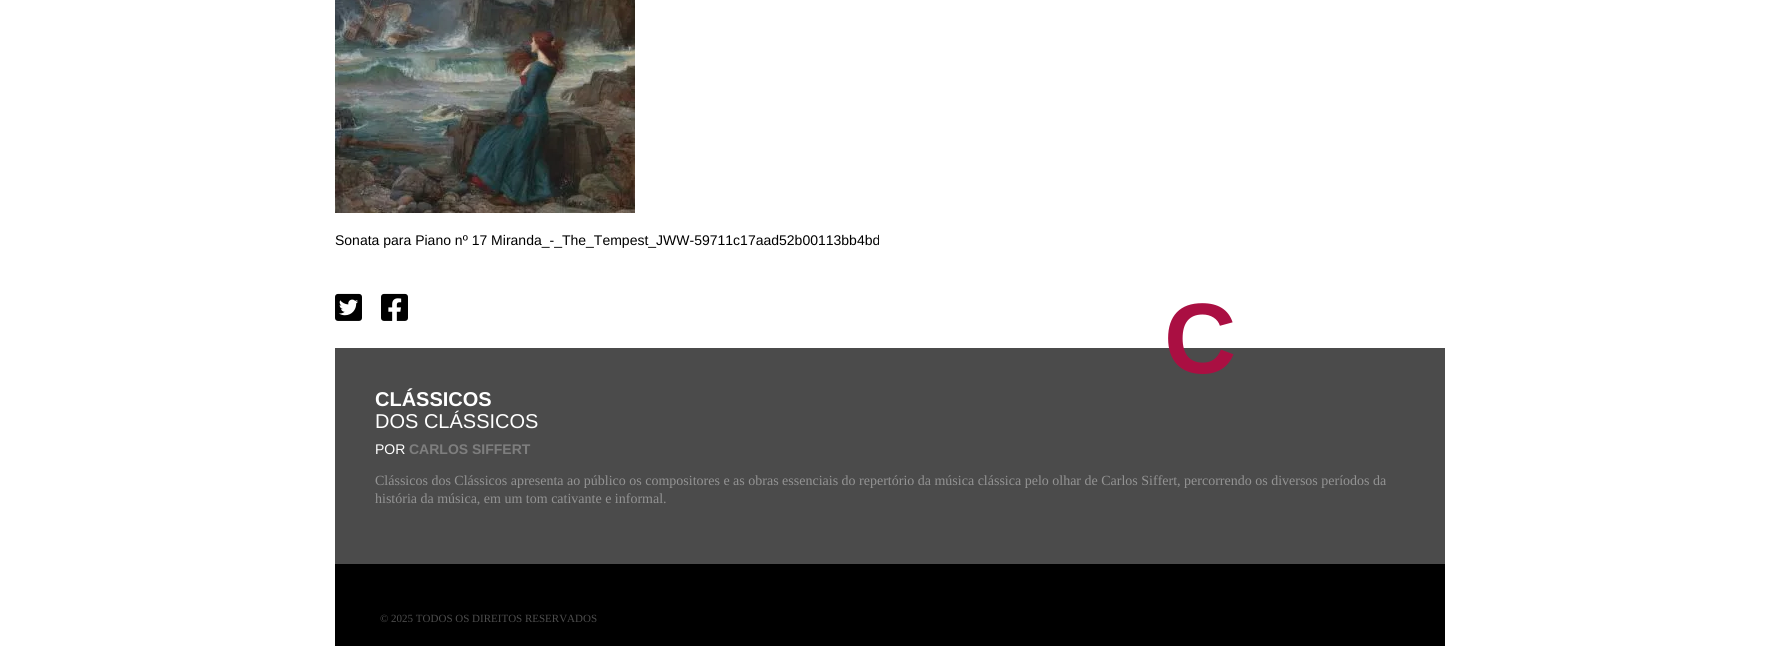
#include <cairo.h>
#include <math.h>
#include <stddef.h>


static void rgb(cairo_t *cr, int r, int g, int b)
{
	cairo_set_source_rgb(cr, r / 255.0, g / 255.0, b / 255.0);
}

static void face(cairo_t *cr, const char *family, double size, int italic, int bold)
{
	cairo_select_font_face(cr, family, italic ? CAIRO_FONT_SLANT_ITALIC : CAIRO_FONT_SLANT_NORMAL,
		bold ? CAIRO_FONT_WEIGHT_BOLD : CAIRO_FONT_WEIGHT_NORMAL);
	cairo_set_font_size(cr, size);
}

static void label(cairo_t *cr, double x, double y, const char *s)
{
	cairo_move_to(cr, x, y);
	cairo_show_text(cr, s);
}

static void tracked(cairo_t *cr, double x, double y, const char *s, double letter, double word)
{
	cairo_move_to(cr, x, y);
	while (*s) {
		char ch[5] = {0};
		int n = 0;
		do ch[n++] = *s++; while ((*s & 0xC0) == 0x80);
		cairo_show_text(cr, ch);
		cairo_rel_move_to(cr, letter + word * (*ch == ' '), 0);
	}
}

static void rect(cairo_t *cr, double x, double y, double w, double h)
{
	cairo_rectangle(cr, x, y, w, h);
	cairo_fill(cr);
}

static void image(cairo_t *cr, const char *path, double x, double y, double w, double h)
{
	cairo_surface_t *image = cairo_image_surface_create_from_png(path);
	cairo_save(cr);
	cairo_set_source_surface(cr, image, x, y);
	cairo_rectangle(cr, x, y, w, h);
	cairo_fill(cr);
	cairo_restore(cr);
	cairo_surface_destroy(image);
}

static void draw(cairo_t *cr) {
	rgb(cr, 255, 255, 255);
	cairo_paint(cr);
	image(cr, "image0.png", 335, 0, 300, 213);
	face(cr, "Liberation Sans", 14, 0, 0);
	rgb(cr, 0, 0, 0);
	label(cr, 335, 245, "Sonata para Piano nº 17 Miranda_-_The_Tempest_JWW-59711c17aad52b00113bb4bd");
	image(cr, "image1.png", 335, 293, 27, 28);
	image(cr, "image2.png", 381, 293, 27, 28);
	rgb(cr, 75, 75, 75);
	rect(cr, 335, 348, 1110, 216);
	face(cr, "Liberation Sans", 100, 0, 1);
	rgb(cr, 170, 15, 66);
	tracked(cr, 1164, 373, "C", 26, 0);
	face(cr, "Liberation Sans", 20, 0, 1);
	rgb(cr, 255, 255, 255);
	label(cr, 375, 406, "CLÁSSICOS");
	face(cr, "Liberation Sans", 20, 0, 0);
	label(cr, 375, 428, "DOS CLÁSSICOS");
	face(cr, "Liberation Sans", 14, 0, 0);
	label(cr, 375, 454, "POR");
	face(cr, "Liberation Sans", 14, 0, 1);
	rgb(cr, 126, 126, 126);
	label(cr, 409, 454, "CARLOS SIFFERT");
	face(cr, "Liberation Serif", 14, 0, 0);
	rgb(cr, 147, 147, 147);
	label(cr, 375, 485, "Clássicos dos Clássicos apresenta ao público os compositores e as obras essenciais do repertório da música clássica pelo olhar de Carlos Siffert, percorrendo os diversos períodos da");
	label(cr, 375, 503, "história da música, em um tom cativante e informal.");
	rgb(cr, 0, 0, 0);
	rect(cr, 335, 564, 1110, 82);
	face(cr, "Liberation Serif", 11, 0, 0);
	rgb(cr, 77, 77, 77);
	label(cr, 380, 622, "© 2025 TODOS OS DIREITOS RESERVADOS");
}

int main(void) {
	cairo_surface_t *surface = cairo_image_surface_create(CAIRO_FORMAT_RGB24, 1780, 646);
	cairo_t *cr = cairo_create(surface);
	cairo_font_options_t *options = cairo_font_options_create();
	cairo_font_options_set_hint_metrics(options, CAIRO_HINT_METRICS_OFF);
	cairo_font_options_set_hint_style(options, CAIRO_HINT_STYLE_NONE);
	cairo_set_font_options(cr, options);
	cairo_set_miter_limit(cr, 4);
	draw(cr);
	cairo_surface_write_to_png(surface, "render.png");
	cairo_font_options_destroy(options);
	cairo_destroy(cr);
	cairo_surface_destroy(surface);
	return 0;
}
